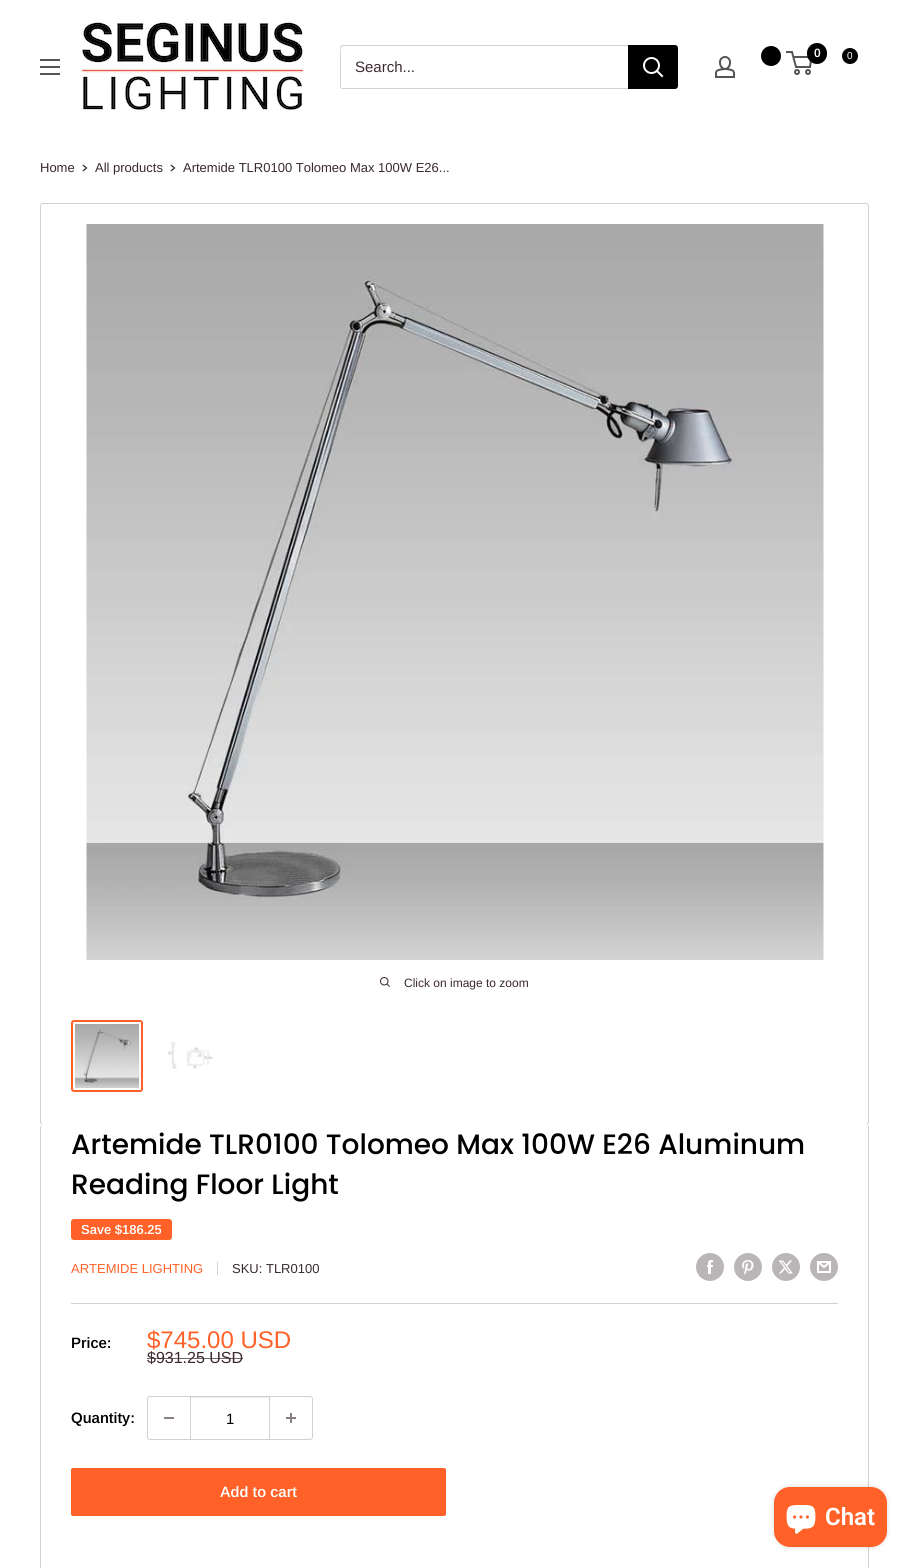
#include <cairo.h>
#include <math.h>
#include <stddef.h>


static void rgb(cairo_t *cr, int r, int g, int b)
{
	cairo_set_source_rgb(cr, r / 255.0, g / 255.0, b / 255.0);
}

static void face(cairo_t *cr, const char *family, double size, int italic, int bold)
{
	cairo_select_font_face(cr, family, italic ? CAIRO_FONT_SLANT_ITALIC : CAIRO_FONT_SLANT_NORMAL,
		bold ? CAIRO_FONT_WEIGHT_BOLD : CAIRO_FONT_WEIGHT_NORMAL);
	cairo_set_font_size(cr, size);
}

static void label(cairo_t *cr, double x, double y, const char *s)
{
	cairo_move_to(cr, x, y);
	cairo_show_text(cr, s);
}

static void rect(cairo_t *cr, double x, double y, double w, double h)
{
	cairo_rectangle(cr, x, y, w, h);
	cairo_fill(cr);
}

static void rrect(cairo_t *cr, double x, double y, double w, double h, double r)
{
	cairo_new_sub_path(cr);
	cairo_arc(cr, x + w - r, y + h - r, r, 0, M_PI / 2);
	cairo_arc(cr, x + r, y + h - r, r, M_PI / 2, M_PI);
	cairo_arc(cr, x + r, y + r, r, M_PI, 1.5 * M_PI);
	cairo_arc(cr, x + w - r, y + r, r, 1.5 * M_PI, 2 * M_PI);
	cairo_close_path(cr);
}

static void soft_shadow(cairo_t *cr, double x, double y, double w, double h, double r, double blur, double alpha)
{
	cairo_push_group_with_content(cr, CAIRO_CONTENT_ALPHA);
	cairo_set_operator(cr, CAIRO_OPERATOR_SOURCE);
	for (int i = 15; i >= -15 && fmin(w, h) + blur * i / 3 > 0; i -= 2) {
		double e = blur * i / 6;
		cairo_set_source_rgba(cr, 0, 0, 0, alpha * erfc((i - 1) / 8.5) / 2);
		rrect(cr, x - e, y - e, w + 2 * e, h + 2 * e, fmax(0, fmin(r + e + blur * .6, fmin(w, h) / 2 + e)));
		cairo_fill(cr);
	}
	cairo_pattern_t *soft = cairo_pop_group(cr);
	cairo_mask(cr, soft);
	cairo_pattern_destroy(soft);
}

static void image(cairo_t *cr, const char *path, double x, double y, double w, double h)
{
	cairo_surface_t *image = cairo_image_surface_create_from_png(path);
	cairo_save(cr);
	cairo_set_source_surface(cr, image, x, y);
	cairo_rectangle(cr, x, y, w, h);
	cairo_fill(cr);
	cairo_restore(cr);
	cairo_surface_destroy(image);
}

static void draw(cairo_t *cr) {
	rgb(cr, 255, 255, 255);
	cairo_paint(cr);
	image(cr, "image0.png", 81, 20, 224, 92);
	rgb(cr, 0, 0, 0);
	cairo_arc(cr, 771, 56, 10, 0, 2 * M_PI);
	cairo_fill(cr);
	cairo_arc(cr, 797, 72, 2, 0, 2 * M_PI);
	rgb(cr, 85, 85, 85);
	cairo_stroke(cr);
	cairo_arc(cr, 808, 72, 2, 0, 2 * M_PI);
	cairo_stroke(cr);
	cairo_new_path(cr);
	cairo_move_to(cr, 793.5, 57);
	cairo_line_to(cr, 811.5, 57);
	cairo_line_to(cr, 810, 67);
	cairo_line_to(cr, 796, 67);
	cairo_line_to(cr, 792, 52);
	cairo_line_to(cr, 786, 52);
	cairo_stroke(cr);
	rgb(cr, 0, 0, 0);
	rrect(cr, 807, 43, 20, 21, 10);
	cairo_fill(cr);
	face(cr, "Arimo SemiBold", 12, 0, 0);
	rgb(cr, 255, 255, 255);
	label(cr, 814, 57, "0");
	rgb(cr, 0, 0, 0);
	cairo_new_path(cr);
	cairo_arc(cr, 850, 56, 8, 0, 2 * M_PI);
	cairo_fill(cr);
	face(cr, "Arimo", 10, 0, 0);
	rgb(cr, 255, 255, 255);
	label(cr, 847, 59, "0");
	image(cr, "image1.png", 715, 56, 20, 22);
	image(cr, "image2.png", 40, 59, 20, 16);
	rgb(cr, 209, 209, 209);
	cairo_new_path(cr);
	cairo_move_to(cr, 341, 88);
	cairo_curve_to(cr, 341, 89, 342, 89, 343, 89);
	cairo_line_to(cr, 675, 89);
	cairo_curve_to(cr, 677, 89, 678, 88, 678, 86);
	cairo_line_to(cr, 678, 48);
	cairo_curve_to(cr, 678, 47, 678, 46, 677, 46);
	cairo_line_to(cr, 677, 79);
	cairo_curve_to(cr, 677, 81, 679, 88, 674, 88);
	cairo_close_path(cr);
	cairo_fill(cr);
	cairo_new_path(cr);
	cairo_move_to(cr, 344, 46);
	cairo_line_to(cr, 677, 46);
	cairo_curve_to(cr, 677, 45, 676, 45, 675, 45);
	cairo_line_to(cr, 343, 45);
	cairo_curve_to(cr, 341, 45, 340, 46, 340, 48);
	cairo_line_to(cr, 340, 86);
	cairo_curve_to(cr, 340, 87, 340, 88, 341, 88);
	cairo_line_to(cr, 341, 55);
	cairo_curve_to(cr, 341, 53, 339, 46, 344, 46);
	cairo_close_path(cr);
	cairo_fill(cr);
	face(cr, "Arimo", 15, 0, 0);
	rgb(cr, 58, 42, 47);
	label(cr, 355, 72, "Search...");
	rgb(cr, 0, 0, 0);
	cairo_new_path(cr);
	cairo_move_to(cr, 628, 45);
	cairo_line_to(cr, 675, 45);
	cairo_curve_to(cr, 676.5, 45, 678, 46.5, 678, 48);
	cairo_line_to(cr, 678, 86);
	cairo_curve_to(cr, 678, 87.5, 676.5, 89, 675, 89);
	cairo_line_to(cr, 628, 89);
	cairo_close_path(cr);
	cairo_fill(cr);
	cairo_new_path(cr);
	cairo_move_to(cr, 662, 76);
	cairo_line_to(cr, 657, 71);
	rgb(cr, 255, 255, 255);
	cairo_set_line_cap(cr, CAIRO_LINE_CAP_SQUARE);
	cairo_stroke(cr);
	cairo_arc(cr, 651.5, 65.5, 7.5, 0, 2 * M_PI);
	cairo_set_line_cap(cr, CAIRO_LINE_CAP_BUTT);
	cairo_stroke(cr);
	face(cr, "Arimo", 13, 0, 0);
	rgb(cr, 58, 42, 47);
	label(cr, 40, 172, "Home");
	cairo_new_path(cr);
	cairo_move_to(cr, 83.5, 165.5);
	cairo_line_to(cr, 86.5, 168);
	cairo_line_to(cr, 83.5, 170.5);
	cairo_set_line_width(cr, 1.3);
	cairo_set_line_cap(cr, CAIRO_LINE_CAP_SQUARE);
	cairo_stroke(cr);
	label(cr, 95, 172, "All products");
	cairo_new_path(cr);
	cairo_move_to(cr, 171.5, 165.5);
	cairo_line_to(cr, 174.5, 168);
	cairo_line_to(cr, 171.5, 170.5);
	cairo_stroke(cr);
	label(cr, 183, 172, "Artemide TLR0100 Tolomeo Max 100W E26...");
	rrect(cr, 40.5, 203.5, 828, 921, 2.5);
	rgb(cr, 209, 209, 212);
	cairo_set_line_width(cr, 1);
	cairo_set_line_cap(cr, CAIRO_LINE_CAP_BUTT);
	cairo_stroke(cr);
	image(cr, "image3.png", 86, 224, 738, 736);
	image(cr, "image4.png", 380, 977, 10, 10);
	face(cr, "Arimo", 12, 0, 0);
	rgb(cr, 58, 42, 47);
	label(cr, 404, 987, "Click on image to zoom");
	rrect(cr, 72, 1021, 70, 70, 2);
	rgb(cr, 255, 97, 40);
	cairo_set_line_width(cr, 2);
	cairo_stroke(cr);
	image(cr, "image5.png", 75, 1024, 64, 64);
	image(cr, "image6.png", 167, 1041, 47, 28);
	rgb(cr, 255, 255, 255);
	cairo_new_path(cr);
	cairo_move_to(cr, 43, 1124);
	cairo_curve_to(cr, 41, 1124, 40, 1126, 40, 1128);
	cairo_curve_to(cr, 40, 1126, 41, 1125, 43, 1125);
	cairo_line_to(cr, 866, 1125);
	cairo_curve_to(cr, 868, 1125, 869, 1126, 869, 1128);
	cairo_curve_to(cr, 869, 1126, 868, 1124, 866, 1124);
	cairo_close_path(cr);
	cairo_fill(cr);
	rgb(cr, 209, 209, 212);
	cairo_set_fill_rule(cr, CAIRO_FILL_RULE_EVEN_ODD);
	cairo_new_path(cr);
	cairo_move_to(cr, 43, 1125);
	cairo_line_to(cr, 866, 1125);
	cairo_curve_to(cr, 868, 1125, 869, 1126, 869, 1128);
	cairo_line_to(cr, 869, 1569);
	cairo_curve_to(cr, 869, 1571, 868, 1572, 866, 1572);
	cairo_line_to(cr, 43, 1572);
	cairo_curve_to(cr, 41, 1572, 40, 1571, 40, 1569);
	cairo_line_to(cr, 40, 1128);
	cairo_curve_to(cr, 40, 1126, 41, 1125, 43, 1125);
	cairo_close_path(cr);
	cairo_move_to(cr, 43, 1125);
	cairo_line_to(cr, 866, 1125);
	cairo_curve_to(cr, 867, 1125, 868, 1126, 868, 1128);
	cairo_line_to(cr, 868, 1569);
	cairo_curve_to(cr, 868, 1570, 867, 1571, 866, 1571);
	cairo_line_to(cr, 43, 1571);
	cairo_curve_to(cr, 42, 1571, 41, 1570, 41, 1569);
	cairo_line_to(cr, 41, 1128);
	cairo_curve_to(cr, 41, 1126, 42, 1125, 43, 1125);
	cairo_close_path(cr);
	cairo_fill(cr);
	face(cr, "Poppins Medium", 28, 0, 0);
	rgb(cr, 0, 0, 0);
	label(cr, 71, 1154, "Artemide TLR0100 Tolomeo Max 100W E26 Aluminum");
	label(cr, 71, 1194, "Reading Floor Light");
	rgb(cr, 255, 97, 40);
	rrect(cr, 71, 1219, 101, 21, 3);
	cairo_fill(cr);
	face(cr, "Arimo SemiBold", 13, 0, 0);
	rgb(cr, 255, 255, 255);
	label(cr, 81, 1234, "Save $186.25");
	face(cr, "Arimo", 13, 0, 0);
	rgb(cr, 255, 97, 40);
	label(cr, 71, 1273, "ARTEMIDE LIGHTING");
	rgb(cr, 209, 209, 212);
	rect(cr, 217, 1262, 1, 13);
	rgb(cr, 58, 42, 47);
	label(cr, 232, 1273, "SKU: TLR0100");
	image(cr, "image7.png", 696, 1253, 28, 28);
	image(cr, "image8.png", 734, 1253, 28, 28);
	image(cr, "image9.png", 772, 1253, 28, 28);
	image(cr, "image10.png", 810, 1253, 28, 28);
	rgb(cr, 209, 209, 212);
	rect(cr, 71, 1303, 767, 1);
	face(cr, "Arimo SemiBold", 15, 0, 0);
	rgb(cr, 0, 0, 0);
	label(cr, 71, 1348, "Price:");
	face(cr, "Arimo", 24, 0, 0);
	rgb(cr, 255, 97, 40);
	label(cr, 147, 1348, "$745.00 USD");
	face(cr, "Arimo", 16, 0, 0);
	rgb(cr, 58, 42, 47);
	label(cr, 147, 1363, "$931.25 USD");
	cairo_set_source_rgba(cr, 0.227, 0.165, 0.184, 0.7);
	rect(cr, 147, 1358, 96, 1);
	face(cr, "Arimo SemiBold", 15, 0, 0);
	rgb(cr, 0, 0, 0);
	label(cr, 71, 1423, "Quantity:");
	rrect(cr, 147.5, 1396.5, 165, 43, 2.5);
	rgb(cr, 209, 209, 212);
	cairo_set_line_width(cr, 1);
	cairo_stroke(cr);
	rgb(cr, 137, 127, 130);
	rect(cr, 164, 1417, 10, 2);
	rgb(cr, 237, 237, 238);
	rect(cr, 191, 1397, 78, 1);
	rgb(cr, 209, 209, 212);
	rect(cr, 269, 1397, 1, 42);
	rect(cr, 190, 1397, 1, 42);
	face(cr, "Arimo", 15, 0, 0);
	rgb(cr, 0, 0, 0);
	label(cr, 226, 1424, "1");
	image(cr, "image11.png", 286, 1413, 10, 10);
	rgb(cr, 255, 97, 40);
	rrect(cr, 71, 1468, 375, 48, 2);
	cairo_fill(cr);
	face(cr, "Arimo SemiBold", 15, 0, 0);
	rgb(cr, 255, 255, 255);
	label(cr, 220, 1497, "Add to cart");
	rgb(cr, 0, 0, 0);
	soft_shadow(cr, 774, 1487, 113, 60, 16, 2.5, 0.15);
	rgb(cr, 255, 97, 40);
	rrect(cr, 774, 1487, 113, 60, 16);
	cairo_fill(cr);
	image(cr, "image12.png", 786, 1505, 30, 29);
	face(cr, "Roboto SemiBold", 24, 0, 0);
	rgb(cr, 255, 255, 255);
	label(cr, 825, 1525, "Chat");
}

int main(void) {
	cairo_surface_t *surface = cairo_image_surface_create(CAIRO_FORMAT_RGB24, 909, 1568);
	cairo_t *cr = cairo_create(surface);
	cairo_font_options_t *options = cairo_font_options_create();
	cairo_font_options_set_hint_metrics(options, CAIRO_HINT_METRICS_OFF);
	cairo_font_options_set_hint_style(options, CAIRO_HINT_STYLE_NONE);
	cairo_set_font_options(cr, options);
	cairo_set_miter_limit(cr, 4);
	draw(cr);
	cairo_surface_write_to_png(surface, "render.png");
	cairo_font_options_destroy(options);
	cairo_destroy(cr);
	cairo_surface_destroy(surface);
	return 0;
}
